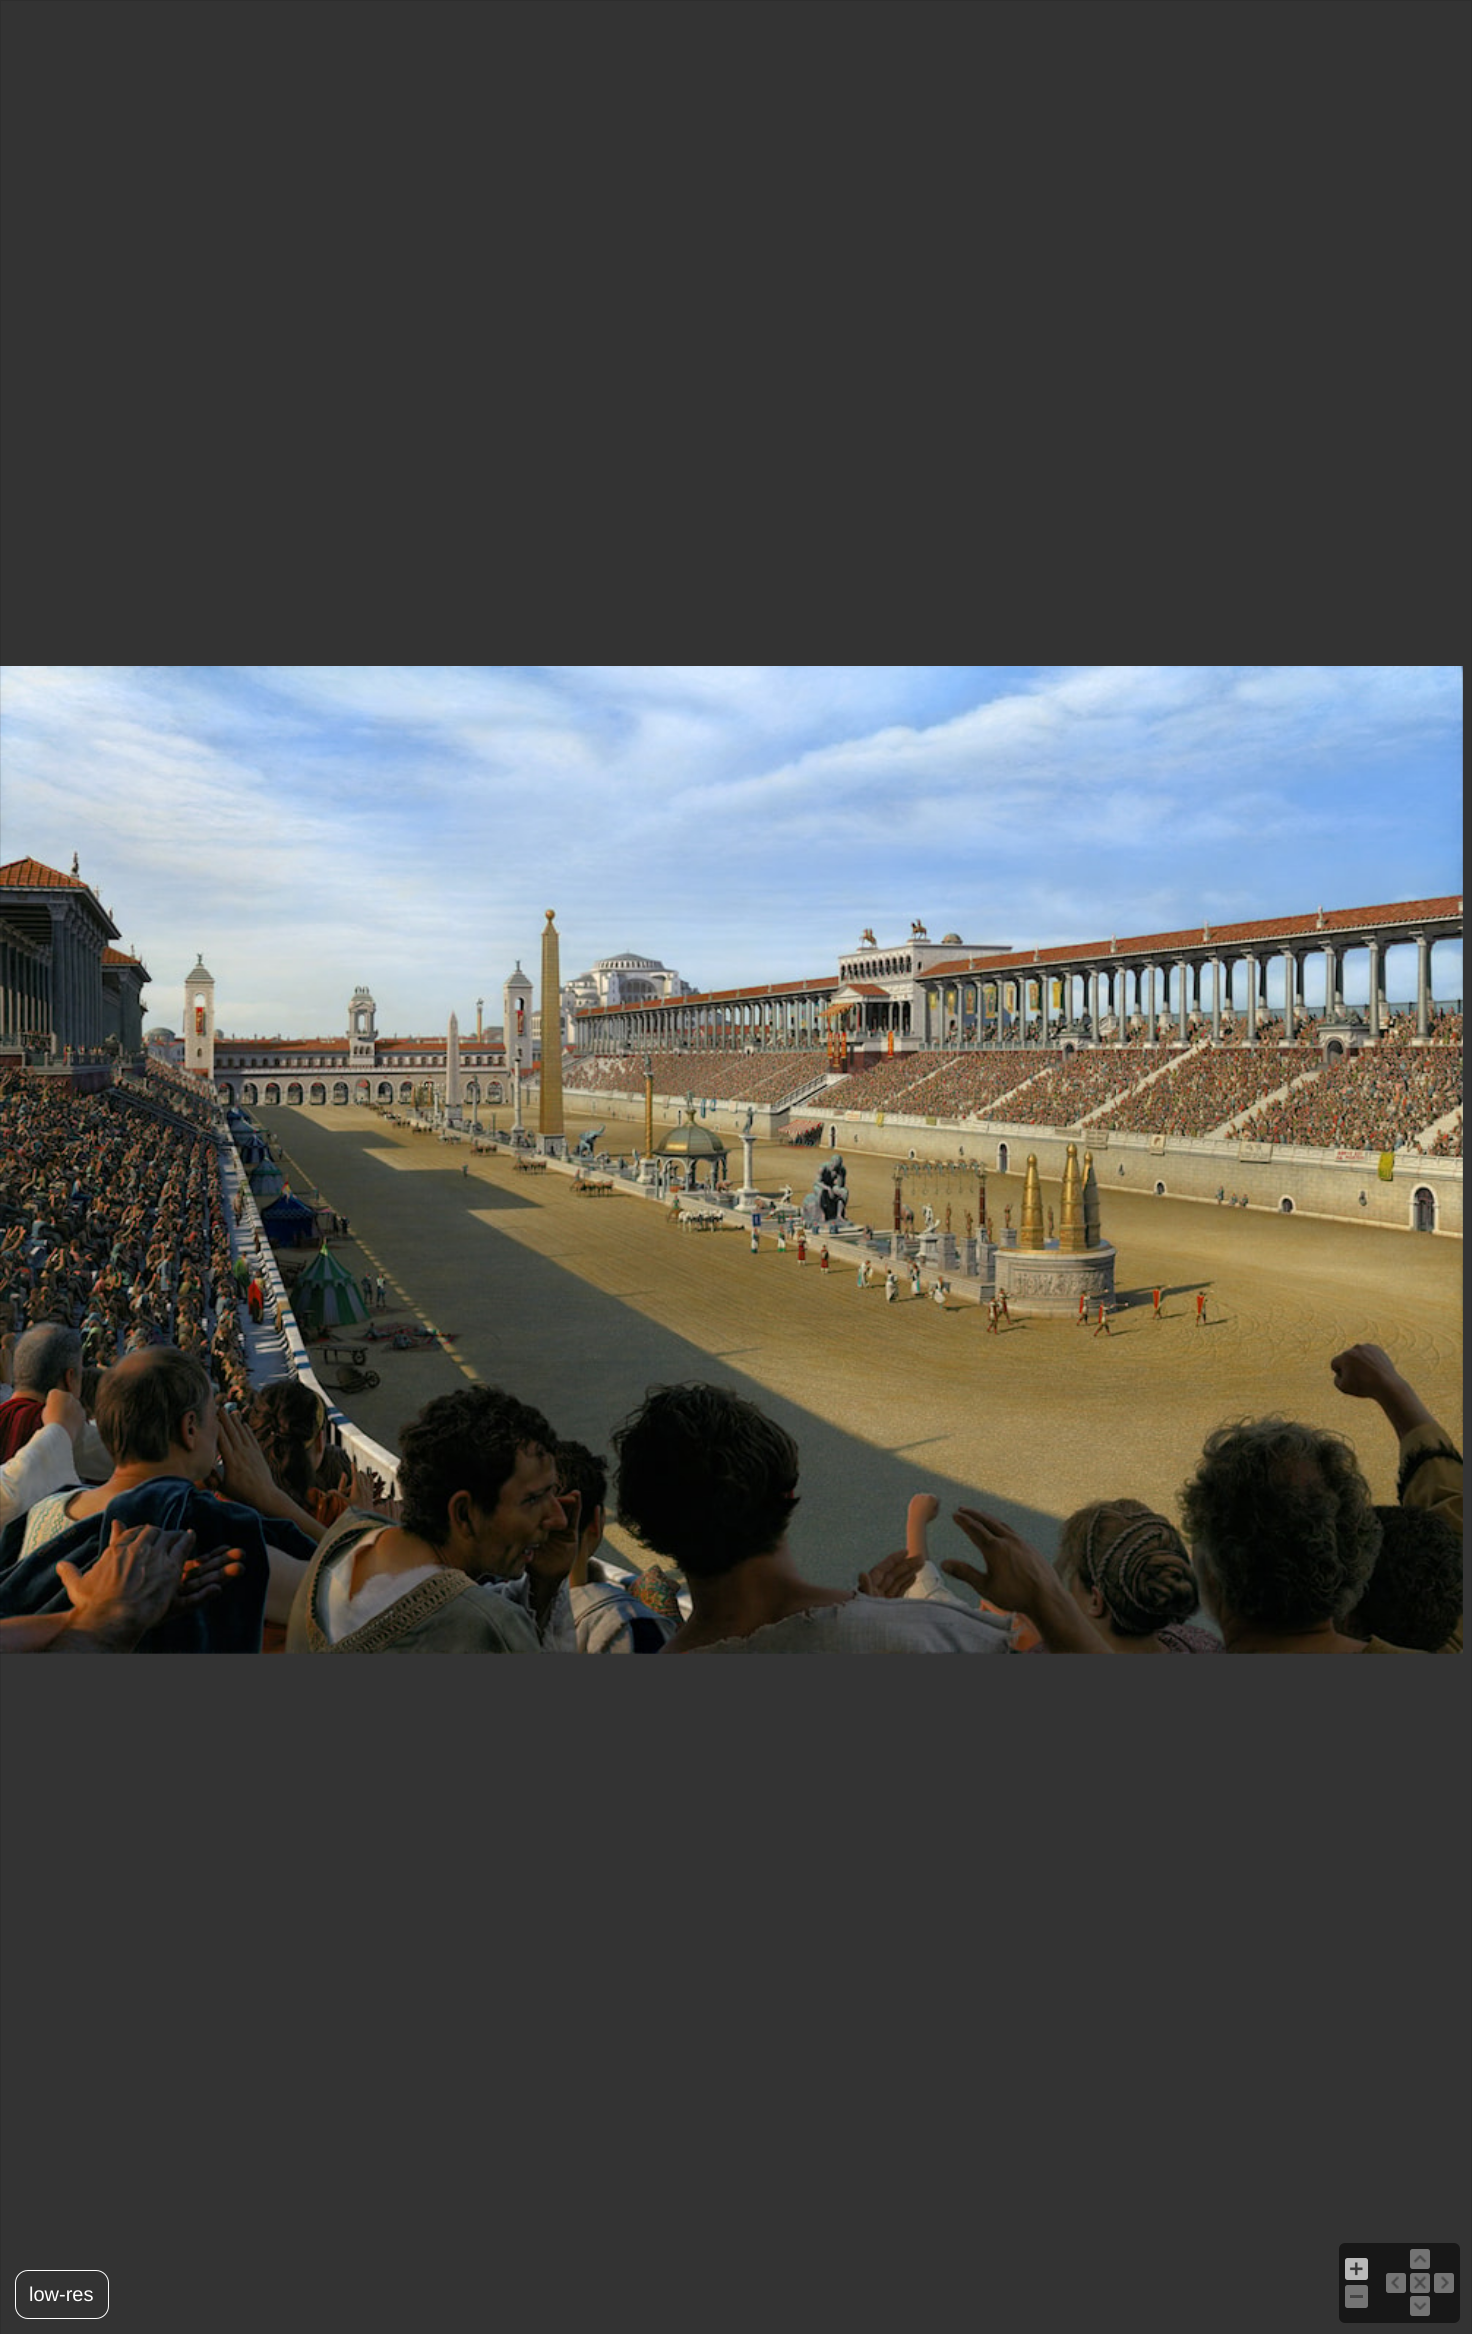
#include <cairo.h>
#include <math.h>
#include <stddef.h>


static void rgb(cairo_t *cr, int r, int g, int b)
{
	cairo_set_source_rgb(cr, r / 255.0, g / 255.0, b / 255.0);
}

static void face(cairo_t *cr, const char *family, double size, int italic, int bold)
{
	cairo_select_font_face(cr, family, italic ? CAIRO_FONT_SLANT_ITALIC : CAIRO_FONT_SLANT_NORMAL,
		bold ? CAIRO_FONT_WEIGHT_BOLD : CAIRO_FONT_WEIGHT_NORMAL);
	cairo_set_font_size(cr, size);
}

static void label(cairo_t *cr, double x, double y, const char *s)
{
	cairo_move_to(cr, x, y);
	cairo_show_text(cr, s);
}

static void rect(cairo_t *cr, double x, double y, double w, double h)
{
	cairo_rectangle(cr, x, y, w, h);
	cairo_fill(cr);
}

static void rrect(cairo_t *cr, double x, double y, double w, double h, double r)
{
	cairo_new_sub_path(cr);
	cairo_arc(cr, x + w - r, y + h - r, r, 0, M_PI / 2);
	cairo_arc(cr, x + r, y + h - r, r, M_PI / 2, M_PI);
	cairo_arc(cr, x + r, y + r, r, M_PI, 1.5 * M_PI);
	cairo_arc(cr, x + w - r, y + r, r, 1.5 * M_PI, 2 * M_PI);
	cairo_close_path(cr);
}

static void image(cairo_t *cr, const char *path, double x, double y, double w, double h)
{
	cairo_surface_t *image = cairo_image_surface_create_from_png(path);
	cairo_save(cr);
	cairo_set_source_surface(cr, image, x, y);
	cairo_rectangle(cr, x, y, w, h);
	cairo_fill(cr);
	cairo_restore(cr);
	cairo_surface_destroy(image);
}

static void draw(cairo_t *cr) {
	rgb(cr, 51, 51, 51);
	cairo_paint(cr);
	image(cr, "image0.png", 0, 666, 1463, 988);
	cairo_set_source_rgba(cr, 0, 0, 0, 0.1);
	rect(cr, 0, 0, 1, 2334);
	rgb(cr, 46, 46, 46);
	rect(cr, 1, 0, 1470, 1);
	rect(cr, 1471, 0, 1, 2334);
	rgb(cr, 23, 23, 23);
	rrect(cr, 1339, 2243, 121, 80, 6);
	cairo_fill(cr);
	rgb(cr, 185, 185, 185);
	rrect(cr, 1345, 2258, 23, 22, 2.5);
	cairo_fill(cr);
	image(cr, "image1.png", 1349, 2262, 14, 14);
	rgb(cr, 116, 116, 116);
	rrect(cr, 1410, 2249, 20, 20, 2.5);
	cairo_fill(cr);
	image(cr, "image2.png", 1413, 2255, 14, 8);
	rrect(cr, 1386, 2273, 20, 20, 2.5);
	cairo_fill(cr);
	image(cr, "image3.png", 1391, 2276, 8, 13);
	rrect(cr, 1410, 2273, 20, 20, 2.5);
	cairo_fill(cr);
	image(cr, "image4.png", 1413, 2276, 14, 13);
	rrect(cr, 1434, 2273, 20, 20, 2.5);
	cairo_fill(cr);
	image(cr, "image5.png", 1441, 2276, 8, 13);
	rrect(cr, 1345, 2285, 23, 23, 2.5);
	cairo_fill(cr);
	rgb(cr, 70, 70, 70);
	rect(cr, 1350, 2295, 13, 3);
	rgb(cr, 116, 116, 116);
	rrect(cr, 1410, 2296, 20, 20, 2.5);
	cairo_fill(cr);
	image(cr, "image6.png", 1413, 2302, 14, 8);
	rrect(cr, 15.5, 2270.5, 93, 48, 12.5);
	rgb(cr, 255, 255, 255);
	cairo_set_line_width(cr, 1);
	cairo_stroke(cr);
	face(cr, "Liberation Sans", 20, 0, 0);
	label(cr, 29, 2301, "low-res");
}

int main(void) {
	cairo_surface_t *surface = cairo_image_surface_create(CAIRO_FORMAT_RGB24, 1472, 2334);
	cairo_t *cr = cairo_create(surface);
	cairo_font_options_t *options = cairo_font_options_create();
	cairo_font_options_set_hint_metrics(options, CAIRO_HINT_METRICS_OFF);
	cairo_font_options_set_hint_style(options, CAIRO_HINT_STYLE_NONE);
	cairo_set_font_options(cr, options);
	cairo_set_miter_limit(cr, 4);
	draw(cr);
	cairo_surface_write_to_png(surface, "render.png");
	cairo_font_options_destroy(options);
	cairo_destroy(cr);
	cairo_surface_destroy(surface);
	return 0;
}
